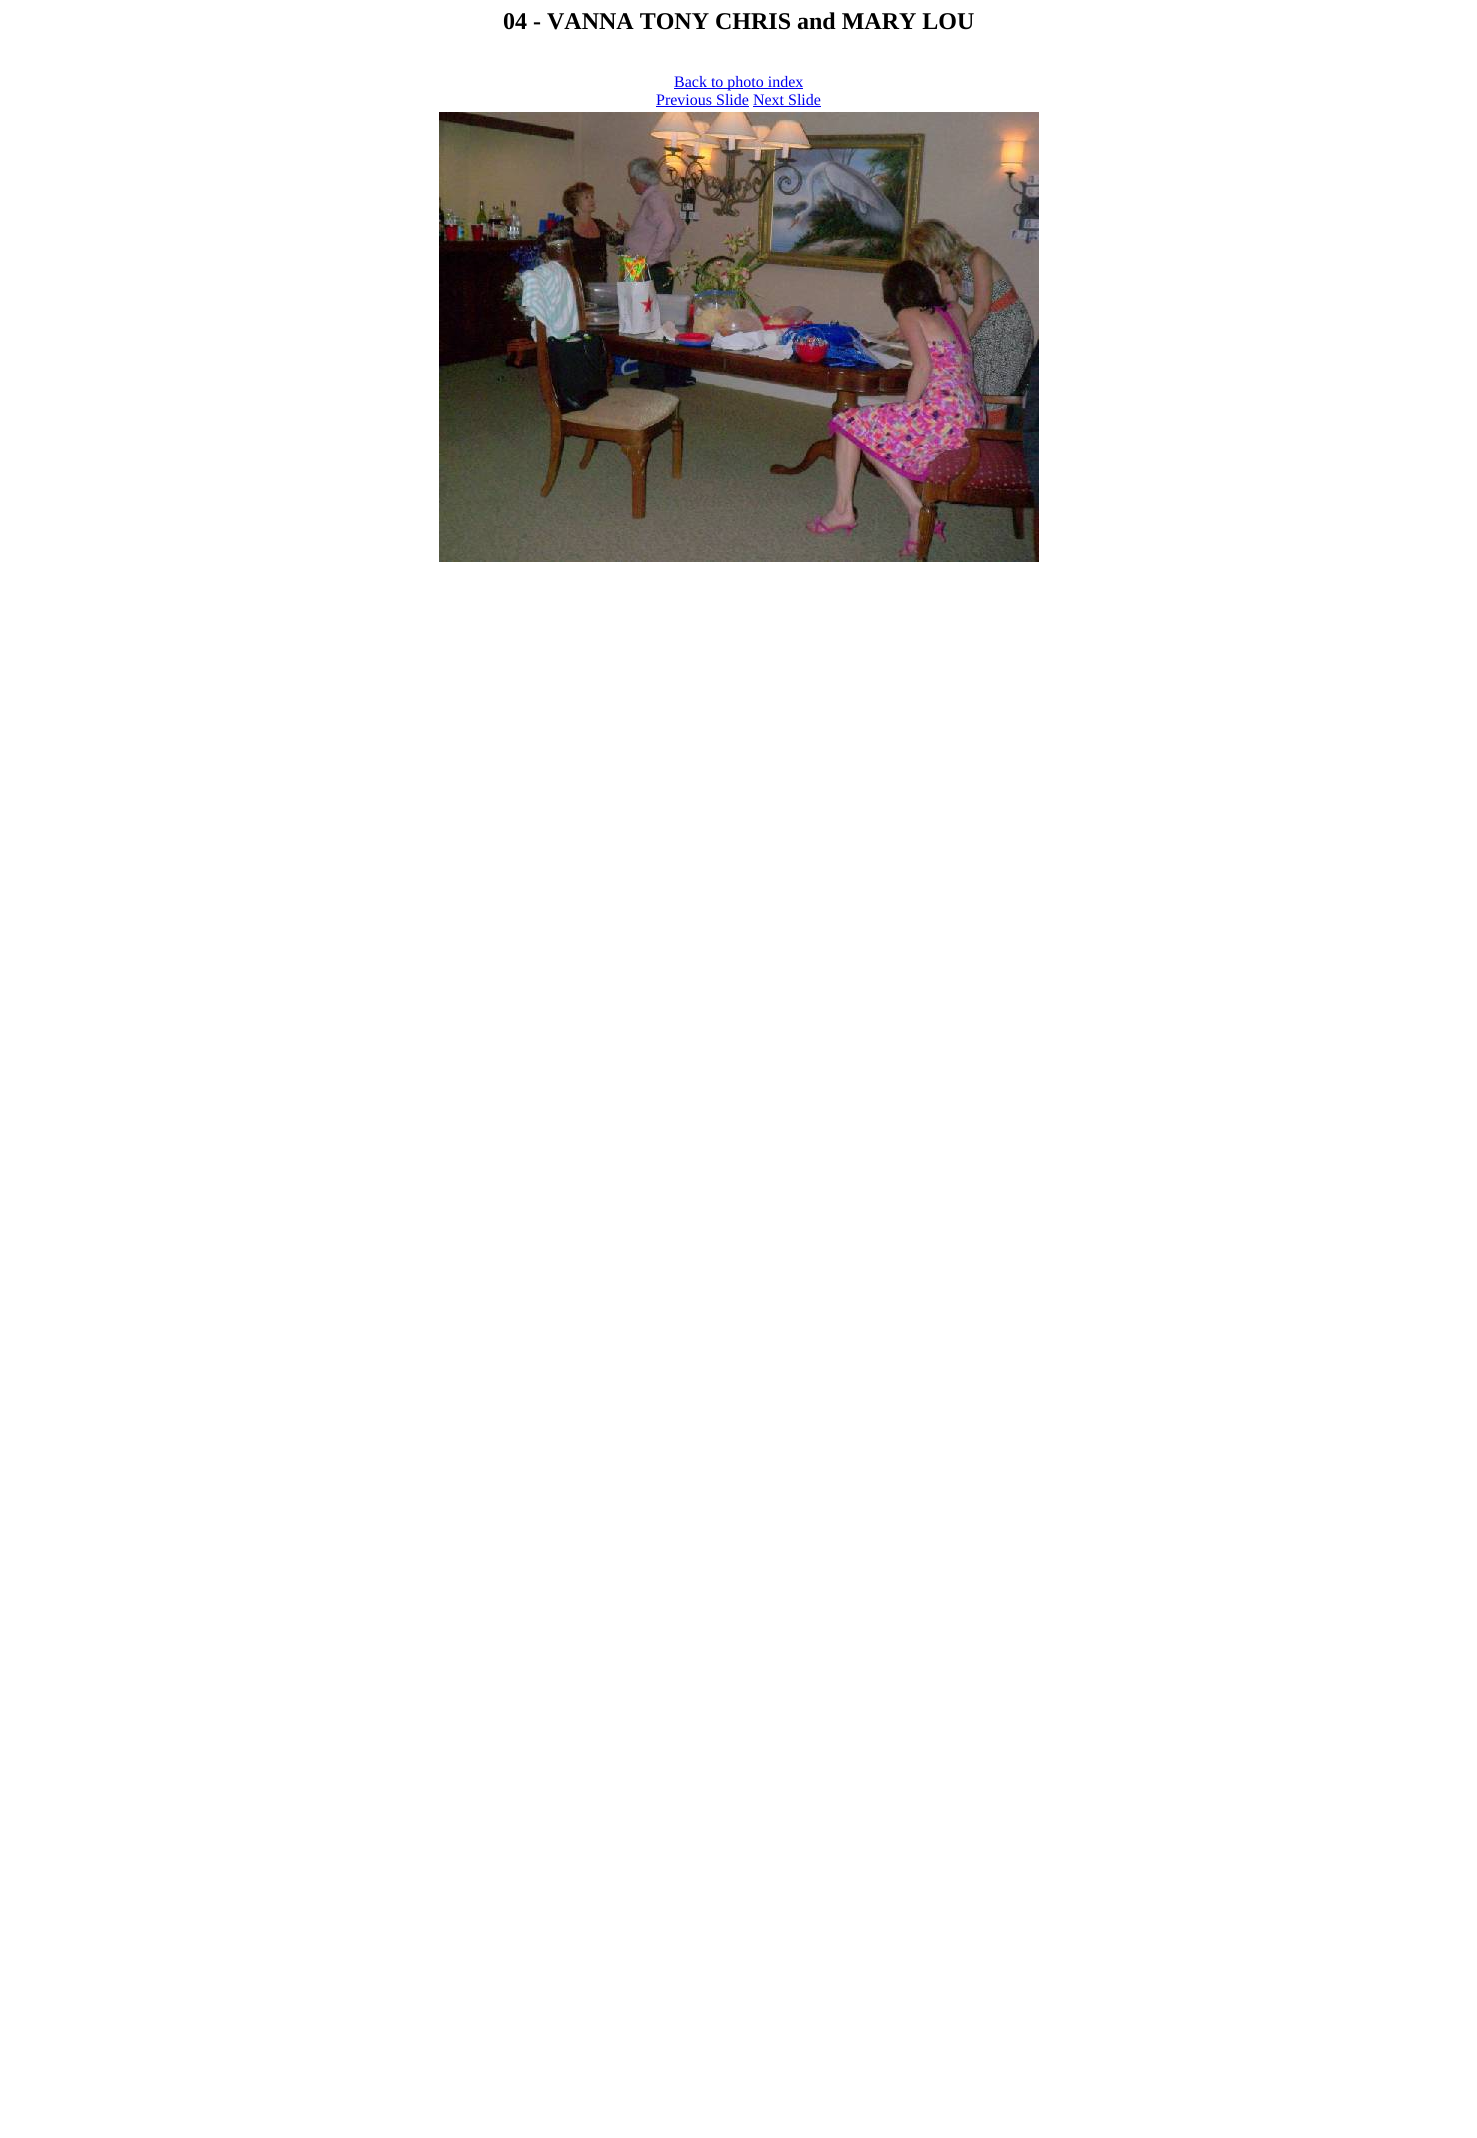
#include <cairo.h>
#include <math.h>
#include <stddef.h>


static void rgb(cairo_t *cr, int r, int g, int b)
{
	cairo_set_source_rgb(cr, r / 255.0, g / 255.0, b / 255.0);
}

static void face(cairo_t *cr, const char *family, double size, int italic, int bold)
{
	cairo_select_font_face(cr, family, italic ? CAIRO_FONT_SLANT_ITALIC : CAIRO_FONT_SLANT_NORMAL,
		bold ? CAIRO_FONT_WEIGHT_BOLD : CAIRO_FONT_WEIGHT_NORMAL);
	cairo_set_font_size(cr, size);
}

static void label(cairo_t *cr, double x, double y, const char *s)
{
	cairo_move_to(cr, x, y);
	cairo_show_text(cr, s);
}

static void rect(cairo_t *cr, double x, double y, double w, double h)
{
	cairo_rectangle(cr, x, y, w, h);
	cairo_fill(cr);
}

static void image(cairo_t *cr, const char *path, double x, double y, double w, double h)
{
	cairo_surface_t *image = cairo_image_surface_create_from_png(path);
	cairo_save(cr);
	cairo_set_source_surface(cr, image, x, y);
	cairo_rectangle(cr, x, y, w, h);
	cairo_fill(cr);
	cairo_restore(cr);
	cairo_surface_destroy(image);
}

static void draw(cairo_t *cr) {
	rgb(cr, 255, 255, 255);
	cairo_paint(cr);
	face(cr, "Liberation Serif", 24, 0, 1);
	rgb(cr, 0, 0, 0);
	label(cr, 503, 29, "04 - VANNA TONY CHRIS and MARY LOU");
	rgb(cr, 0, 0, 238);
	rect(cr, 674, 88, 129, 1);
	face(cr, "Liberation Serif", 16, 0, 0);
	label(cr, 674, 87, "Back to photo index");
	label(cr, 656, 105, "Previous Slide Next Slide");
	rect(cr, 656, 106, 93, 1);
	rect(cr, 753, 106, 68, 1);
	image(cr, "image0.png", 439, 112, 600, 450);
}

int main(void) {
	cairo_surface_t *surface = cairo_image_surface_create(CAIRO_FORMAT_RGB24, 1477, 2138);
	cairo_t *cr = cairo_create(surface);
	cairo_font_options_t *options = cairo_font_options_create();
	cairo_font_options_set_hint_metrics(options, CAIRO_HINT_METRICS_OFF);
	cairo_font_options_set_hint_style(options, CAIRO_HINT_STYLE_NONE);
	cairo_set_font_options(cr, options);
	cairo_set_miter_limit(cr, 4);
	draw(cr);
	cairo_surface_write_to_png(surface, "render.png");
	cairo_font_options_destroy(options);
	cairo_destroy(cr);
	cairo_surface_destroy(surface);
	return 0;
}
